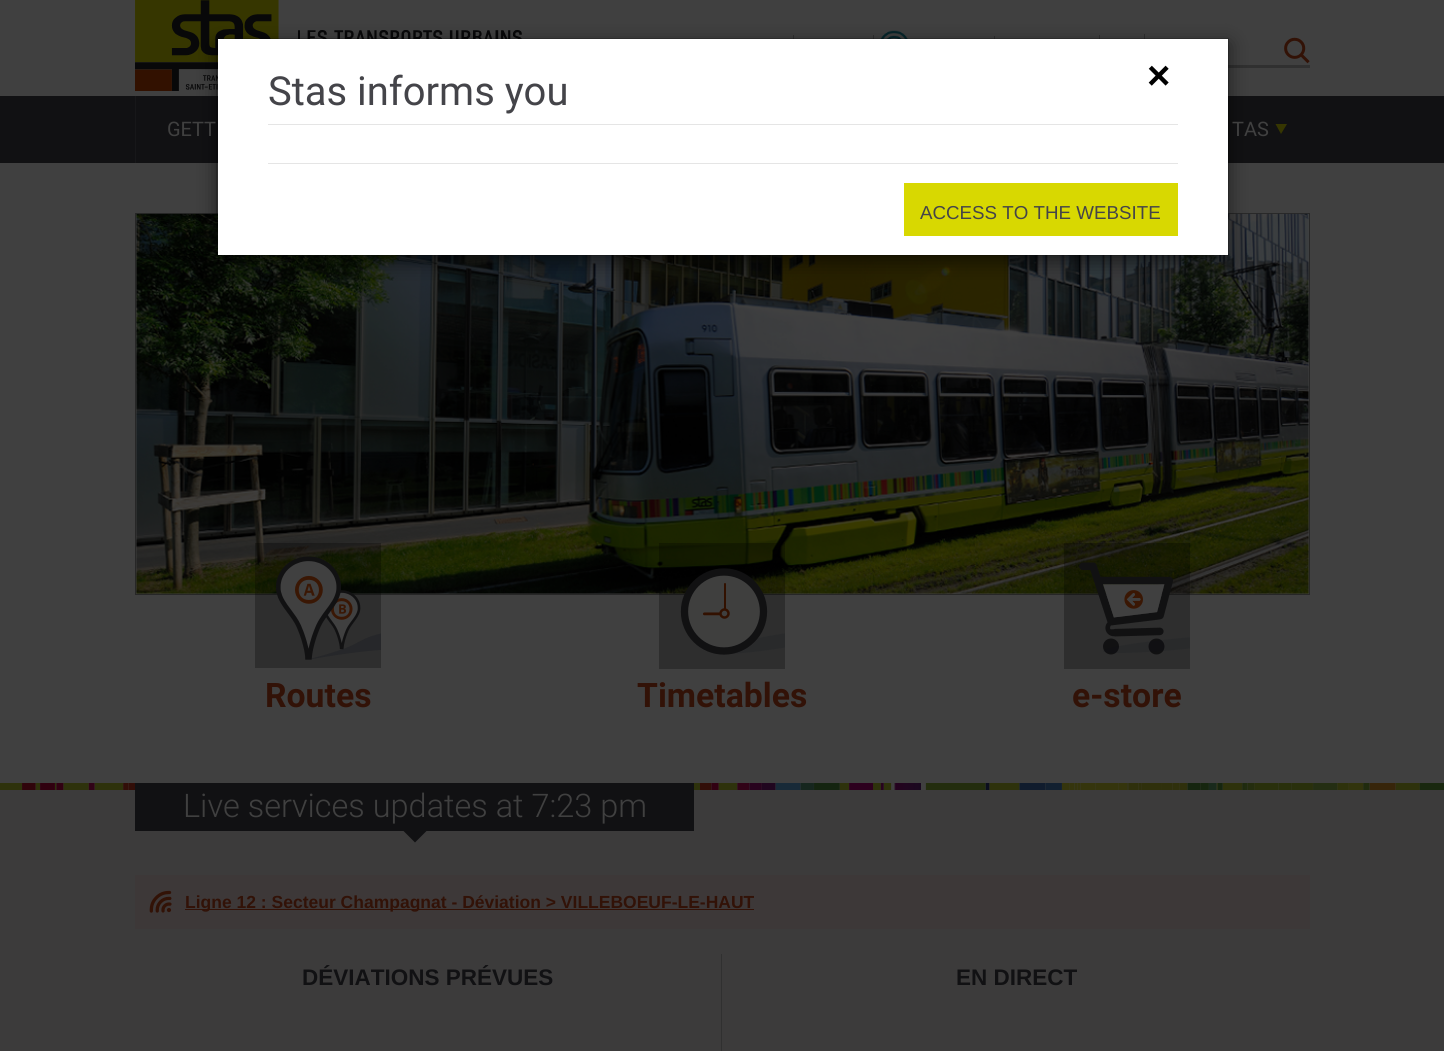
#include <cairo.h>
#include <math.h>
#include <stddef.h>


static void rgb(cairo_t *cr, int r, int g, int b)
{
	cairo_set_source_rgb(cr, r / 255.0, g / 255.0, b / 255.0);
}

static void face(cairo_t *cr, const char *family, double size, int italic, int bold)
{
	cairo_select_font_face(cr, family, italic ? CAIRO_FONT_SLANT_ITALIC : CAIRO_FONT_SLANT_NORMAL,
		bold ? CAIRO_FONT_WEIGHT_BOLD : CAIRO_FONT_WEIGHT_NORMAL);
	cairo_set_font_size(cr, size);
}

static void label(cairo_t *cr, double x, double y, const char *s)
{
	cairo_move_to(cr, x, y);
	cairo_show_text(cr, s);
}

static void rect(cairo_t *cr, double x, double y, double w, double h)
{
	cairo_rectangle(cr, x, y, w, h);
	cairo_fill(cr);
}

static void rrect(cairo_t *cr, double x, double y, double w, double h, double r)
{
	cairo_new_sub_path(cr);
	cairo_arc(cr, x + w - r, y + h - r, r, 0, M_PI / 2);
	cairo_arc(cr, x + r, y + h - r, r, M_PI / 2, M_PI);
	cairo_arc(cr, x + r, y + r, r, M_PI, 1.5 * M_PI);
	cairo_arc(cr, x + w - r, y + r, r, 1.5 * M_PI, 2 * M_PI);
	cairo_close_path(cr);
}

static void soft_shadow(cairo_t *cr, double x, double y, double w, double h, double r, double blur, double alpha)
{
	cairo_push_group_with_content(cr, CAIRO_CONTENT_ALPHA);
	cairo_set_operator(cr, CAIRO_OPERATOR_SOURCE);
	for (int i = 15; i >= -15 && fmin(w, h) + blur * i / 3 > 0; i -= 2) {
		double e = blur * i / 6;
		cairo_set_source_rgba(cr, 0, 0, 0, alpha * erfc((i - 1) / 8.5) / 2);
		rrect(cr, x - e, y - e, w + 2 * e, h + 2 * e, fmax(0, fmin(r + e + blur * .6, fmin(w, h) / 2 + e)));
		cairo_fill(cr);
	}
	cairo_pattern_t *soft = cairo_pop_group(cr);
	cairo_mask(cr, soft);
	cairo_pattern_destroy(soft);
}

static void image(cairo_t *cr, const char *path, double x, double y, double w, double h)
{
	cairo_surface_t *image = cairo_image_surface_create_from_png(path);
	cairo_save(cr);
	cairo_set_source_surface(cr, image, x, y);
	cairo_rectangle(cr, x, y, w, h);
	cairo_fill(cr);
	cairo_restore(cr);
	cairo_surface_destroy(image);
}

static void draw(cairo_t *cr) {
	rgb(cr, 64, 64, 64);
	cairo_paint(cr);
	image(cr, "image0.png", 135, 0, 144, 91);
	image(cr, "image1.png", 298, 30, 224, 9);
	rgb(cr, 48, 48, 48);
	rect(cr, 793, 35, 1, 4);
	rect(cr, 873, 35, 1, 4);
	image(cr, "image2.png", 880, 30, 28, 9);
	rect(cr, 994, 36, 1, 3);
	rect(cr, 1099, 35, 1, 4);
	rect(cr, 1144, 34, 1, 5);
	rect(cr, 1228, 65, 82, 3);
	rgb(cr, 17, 17, 19);
	rect(cr, 0, 96, 1444, 67);
	cairo_rectangle(cr, 135.5, 213.5, 1174, 381);
	rgb(cr, 39, 39, 39);
	cairo_set_line_width(cr, 1);
	cairo_stroke(cr);
	image(cr, "image4.png", 136, 213, 1173, 381);
	rgb(cr, 0, 0, 0);
	soft_shadow(cr, 216, 44, 1013, 219, 0, 9.5, 0.5);
	rgb(cr, 255, 255, 255);
	rect(cr, 218, 39, 1010, 216);
	cairo_rectangle(cr, 216.5, 38.5, 1012, 217);
	cairo_set_source_rgba(cr, 0, 0, 0, 0.2);
	cairo_stroke(cr);
	rgb(cr, 229, 229, 229);
	rect(cr, 268, 124, 910, 1);
	face(cr, "Roboto", 40, 0, 0);
	rgb(cr, 68, 68, 73);
	label(cr, 268, 105, "Stas informs you");
	face(cr, "Liberation Sans", 40, 0, 1);
	rgb(cr, 0, 0, 0);
	label(cr, 1147, 89, "×");
	rgb(cr, 229, 229, 229);
	rect(cr, 268, 163, 910, 1);
	rgb(cr, 216, 216, 1);
	rect(cr, 904, 183, 274, 53);
	face(cr, "Liberation Sans", 18.75, 0, 0);
	rgb(cr, 68, 68, 73);
	label(cr, 920, 219, "ACCESS TO THE WEBSITE");
	image(cr, "image3.png", 1284, 37, 26, 27);
	rgb(cr, 23, 23, 25);
	rect(cr, 135, 96, 1, 67);
	face(cr, "Roboto", 20, 0, 0);
	rgb(cr, 64, 64, 64);
	label(cr, 167, 136, "GETT");
	label(cr, 1232, 136, "TAS");
	rgb(cr, 54, 54, 1);
	cairo_new_path(cr);
	cairo_move_to(cr, 1287, 124);
	cairo_line_to(cr, 1281, 134);
	cairo_line_to(cr, 1275.5, 124);
	cairo_close_path(cr);
	cairo_fill(cr);
	image(cr, "image5.png", 255, 543, 126, 125);
	face(cr, "Roboto", 33.75, 0, 1);
	rgb(cr, 50, 18, 7);
	label(cr, 265, 707, "Routes");
	image(cr, "image6.png", 659, 543, 126, 126);
	label(cr, 637, 707, "Timetables");
	image(cr, "image7.png", 1064, 543, 126, 126);
	label(cr, 1072, 707, "e-store");
	image(cr, "image8.png", 0, 783, 1444, 7);
	rgb(cr, 60, 59, 59);
	rect(cr, 0, 790, 1444, 261);
	rgb(cr, 17, 17, 19);
	rect(cr, 135, 783, 559, 48);
	face(cr, "Roboto Light", 32.5, 0, 0);
	rgb(cr, 64, 64, 64);
	label(cr, 183, 817, "Live services updates at 7:23 pm");
	rgb(cr, 17, 17, 19);
	cairo_new_path(cr);
	cairo_move_to(cr, 402.5, 830);
	cairo_line_to(cr, 427.5, 830);
	cairo_line_to(cr, 415, 842.5);
	cairo_close_path(cr);
	cairo_fill(cr);
	rgb(cr, 61, 56, 56);
	rect(cr, 135, 875, 1175, 54);
	image(cr, "image9.png", 149, 890, 23, 23);
	rgb(cr, 50, 18, 7);
	rect(cr, 185, 909, 569, 1);
	face(cr, "Liberation Sans", 17.5, 0, 1);
	label(cr, 185, 908, "Ligne 12 : Secteur Champagnat - Déviation > VILLEBOEUF-LE-HAUT");
	rgb(cr, 48, 48, 48);
	rect(cr, 721, 954, 1, 97);
	face(cr, "Liberation Sans", 22.5, 0, 1);
	rgb(cr, 17, 17, 19);
	label(cr, 302, 985, "DÉVIATIONS PRÉVUES");
	label(cr, 956, 985, "EN DIRECT");
}

int main(void) {
	cairo_surface_t *surface = cairo_image_surface_create(CAIRO_FORMAT_RGB24, 1444, 1051);
	cairo_t *cr = cairo_create(surface);
	cairo_font_options_t *options = cairo_font_options_create();
	cairo_font_options_set_hint_metrics(options, CAIRO_HINT_METRICS_OFF);
	cairo_font_options_set_hint_style(options, CAIRO_HINT_STYLE_NONE);
	cairo_set_font_options(cr, options);
	cairo_set_miter_limit(cr, 4);
	draw(cr);
	cairo_surface_write_to_png(surface, "render.png");
	cairo_font_options_destroy(options);
	cairo_destroy(cr);
	cairo_surface_destroy(surface);
	return 0;
}
